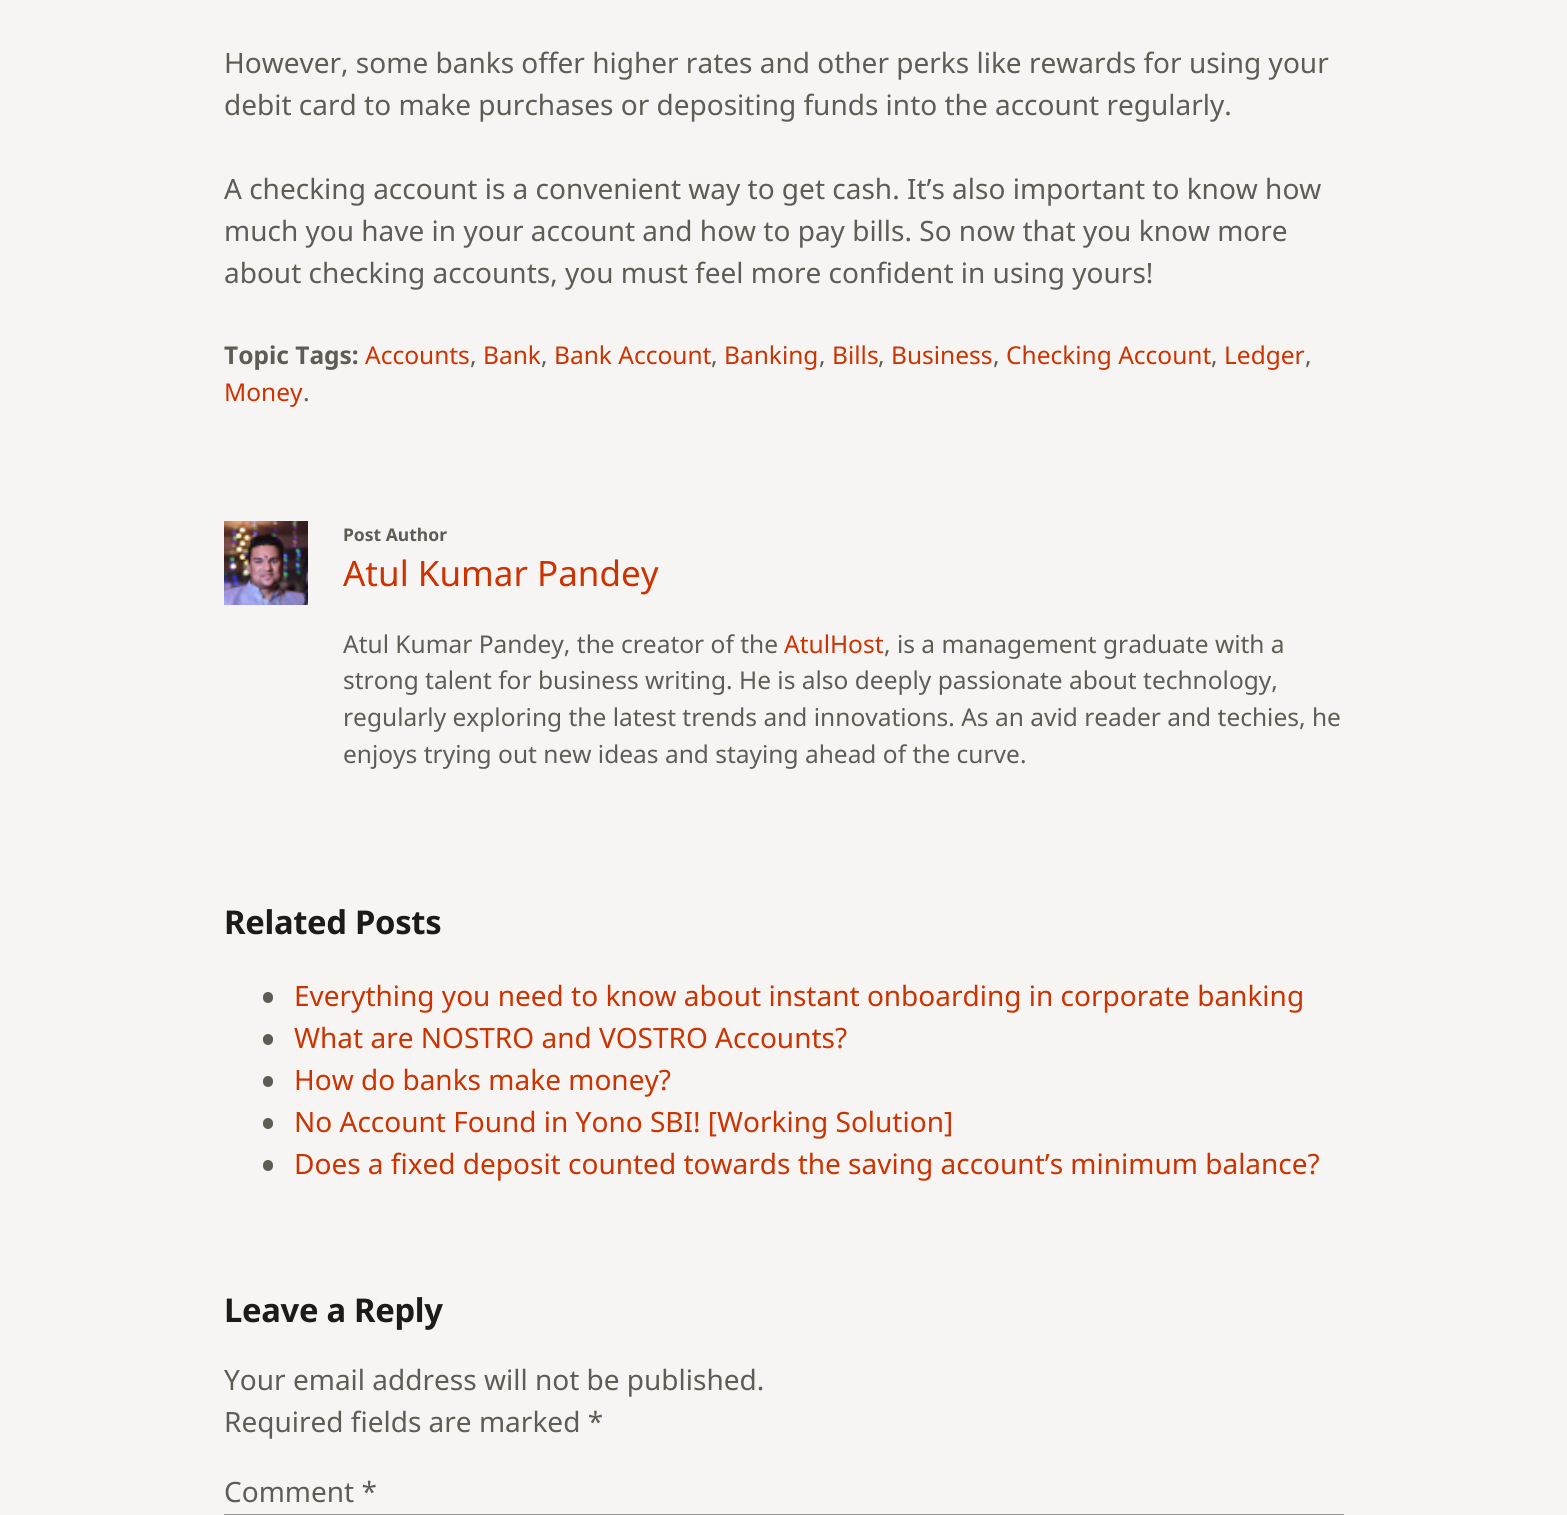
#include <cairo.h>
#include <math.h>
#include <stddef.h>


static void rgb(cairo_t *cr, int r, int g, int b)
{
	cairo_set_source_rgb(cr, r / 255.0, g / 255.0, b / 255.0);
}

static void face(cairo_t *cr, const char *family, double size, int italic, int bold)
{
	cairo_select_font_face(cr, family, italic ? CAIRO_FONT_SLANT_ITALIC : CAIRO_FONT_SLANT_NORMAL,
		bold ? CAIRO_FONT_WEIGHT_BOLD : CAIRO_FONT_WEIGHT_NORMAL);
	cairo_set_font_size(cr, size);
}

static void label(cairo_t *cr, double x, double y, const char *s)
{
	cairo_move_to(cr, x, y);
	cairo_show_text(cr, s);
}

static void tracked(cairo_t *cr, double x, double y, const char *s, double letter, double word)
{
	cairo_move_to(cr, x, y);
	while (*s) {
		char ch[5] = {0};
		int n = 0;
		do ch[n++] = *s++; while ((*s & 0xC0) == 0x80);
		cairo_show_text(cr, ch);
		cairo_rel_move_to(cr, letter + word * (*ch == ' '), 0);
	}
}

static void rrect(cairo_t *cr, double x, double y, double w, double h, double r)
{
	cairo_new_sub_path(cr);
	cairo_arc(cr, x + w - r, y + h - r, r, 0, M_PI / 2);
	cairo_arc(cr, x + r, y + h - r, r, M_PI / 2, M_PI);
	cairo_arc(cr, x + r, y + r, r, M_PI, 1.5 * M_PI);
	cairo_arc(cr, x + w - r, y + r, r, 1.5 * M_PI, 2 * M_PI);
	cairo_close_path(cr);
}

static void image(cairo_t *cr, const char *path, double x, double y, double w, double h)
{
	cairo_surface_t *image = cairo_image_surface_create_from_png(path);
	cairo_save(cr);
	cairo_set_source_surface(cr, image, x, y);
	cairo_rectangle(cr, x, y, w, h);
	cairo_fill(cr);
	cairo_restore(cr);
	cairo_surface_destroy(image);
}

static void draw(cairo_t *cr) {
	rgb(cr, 247, 245, 243);
	cairo_paint(cr);
	face(cr, "Noto Sans", 28, 0, 0);
	rgb(cr, 94, 93, 85);
	label(cr, 224, 73, "However, some banks offer higher rates and other perks like rewards for using your");
	label(cr, 224, 115, "debit card to make purchases or depositing funds into the account regularly.");
	label(cr, 224, 199, "A checking account is a convenient way to get cash. It’s also important to know how");
	label(cr, 224, 241, "much you have in your account and how to pay bills. So now that you know more");
	label(cr, 224, 283, "about checking accounts, you must feel more confident in using yours!");
	face(cr, "Noto Sans", 24.5, 0, 1);
	label(cr, 224, 364, "Topic Tags:");
	face(cr, "Noto Sans", 24.5, 0, 0);
	rgb(cr, 204, 51, 0);
	label(cr, 365, 364, "Accounts");
	rgb(cr, 94, 93, 85);
	label(cr, 470, 364, ",");
	rgb(cr, 204, 51, 0);
	label(cr, 483, 364, "Bank");
	rgb(cr, 94, 93, 85);
	label(cr, 541, 364, ",");
	rgb(cr, 204, 51, 0);
	label(cr, 554, 364, "Bank Account");
	rgb(cr, 94, 93, 85);
	label(cr, 711, 364, ",");
	rgb(cr, 204, 51, 0);
	label(cr, 724, 364, "Banking");
	rgb(cr, 94, 93, 85);
	label(cr, 819, 364, ",");
	rgb(cr, 204, 51, 0);
	label(cr, 832, 364, "Bills");
	rgb(cr, 94, 93, 85);
	label(cr, 878, 364, ",");
	rgb(cr, 204, 51, 0);
	label(cr, 891, 364, "Business");
	rgb(cr, 94, 93, 85);
	label(cr, 993, 364, ",");
	rgb(cr, 204, 51, 0);
	label(cr, 1006, 364, "Checking Account");
	rgb(cr, 94, 93, 85);
	label(cr, 1211, 364, ",");
	rgb(cr, 204, 51, 0);
	label(cr, 1224, 364, "Ledger");
	rgb(cr, 94, 93, 85);
	label(cr, 1305, 364, ",");
	rgb(cr, 204, 51, 0);
	label(cr, 224, 401, "Money");
	rgb(cr, 94, 93, 85);
	label(cr, 303, 401, ".");
	image(cr, "image0.png", 224, 521, 84, 84);
	face(cr, "Noto Sans", 17.5, 0, 1);
	label(cr, 343, 541, "Post Author");
	face(cr, "Noto Sans", 35, 0, 0);
	rgb(cr, 204, 51, 0);
	label(cr, 343, 586, "Atul Kumar Pandey");
	face(cr, "Noto Sans", 24.5, 0, 0);
	rgb(cr, 94, 93, 85);
	label(cr, 343, 653, "Atul Kumar Pandey, the creator of the");
	rgb(cr, 204, 51, 0);
	label(cr, 784, 653, "AtulHost");
	rgb(cr, 94, 93, 85);
	label(cr, 884, 653, ", is a management graduate with a");
	label(cr, 343, 689, "strong talent for business writing. He is also deeply passionate about technology,");
	label(cr, 343, 726, "regularly exploring the latest trends and innovations. As an avid reader and techies, he");
	label(cr, 343, 763, "enjoys trying out new ideas and staying ahead of the curve.");
	face(cr, "Noto Sans", 32.75, 0, 1);
	rgb(cr, 27, 27, 27);
	tracked(cr, 224, 934, "Related Posts", -0.3, 0);
	rgb(cr, 94, 93, 85);
	rrect(cr, 263, 992, 10, 11, 5);
	cairo_fill(cr);
	face(cr, "Noto Sans", 28, 0, 0);
	rgb(cr, 204, 51, 0);
	label(cr, 294, 1006, "Everything you need to know about instant onboarding in corporate banking");
	rgb(cr, 94, 93, 85);
	rrect(cr, 263, 1034, 10, 11, 5);
	cairo_fill(cr);
	rgb(cr, 204, 51, 0);
	label(cr, 294, 1048, "What are NOSTRO and VOSTRO Accounts?");
	rgb(cr, 94, 93, 85);
	rrect(cr, 263, 1076, 10, 11, 5);
	cairo_fill(cr);
	rgb(cr, 204, 51, 0);
	label(cr, 294, 1090, "How do banks make money?");
	rgb(cr, 94, 93, 85);
	rrect(cr, 263, 1118, 10, 11, 5);
	cairo_fill(cr);
	rgb(cr, 204, 51, 0);
	label(cr, 294, 1132, "No Account Found in Yono SBI! [Working Solution]");
	rgb(cr, 94, 93, 85);
	rrect(cr, 263, 1160, 10, 11, 5);
	cairo_fill(cr);
	rgb(cr, 204, 51, 0);
	label(cr, 294, 1174, "Does a fixed deposit counted towards the saving account’s minimum balance?");
	face(cr, "Noto Sans", 32.75, 0, 1);
	rgb(cr, 27, 27, 27);
	tracked(cr, 224, 1322, "Leave a Reply", -0.3, 0);
	face(cr, "Noto Sans", 28, 0, 0);
	rgb(cr, 94, 93, 85);
	label(cr, 224, 1390, "Your email address will not be published.");
	label(cr, 224, 1432, "Required fields are marked *");
	label(cr, 224, 1502, "Comment *");
	cairo_rectangle(cr, 225, 1515, 1118, 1);
	rgb(cr, 148, 148, 148);
	cairo_stroke(cr);
}

int main(void) {
	cairo_surface_t *surface = cairo_image_surface_create(CAIRO_FORMAT_RGB24, 1567, 1515);
	cairo_t *cr = cairo_create(surface);
	cairo_font_options_t *options = cairo_font_options_create();
	cairo_font_options_set_hint_metrics(options, CAIRO_HINT_METRICS_OFF);
	cairo_font_options_set_hint_style(options, CAIRO_HINT_STYLE_NONE);
	cairo_set_font_options(cr, options);
	cairo_set_miter_limit(cr, 4);
	draw(cr);
	cairo_surface_write_to_png(surface, "render.png");
	cairo_font_options_destroy(options);
	cairo_destroy(cr);
	cairo_surface_destroy(surface);
	return 0;
}
